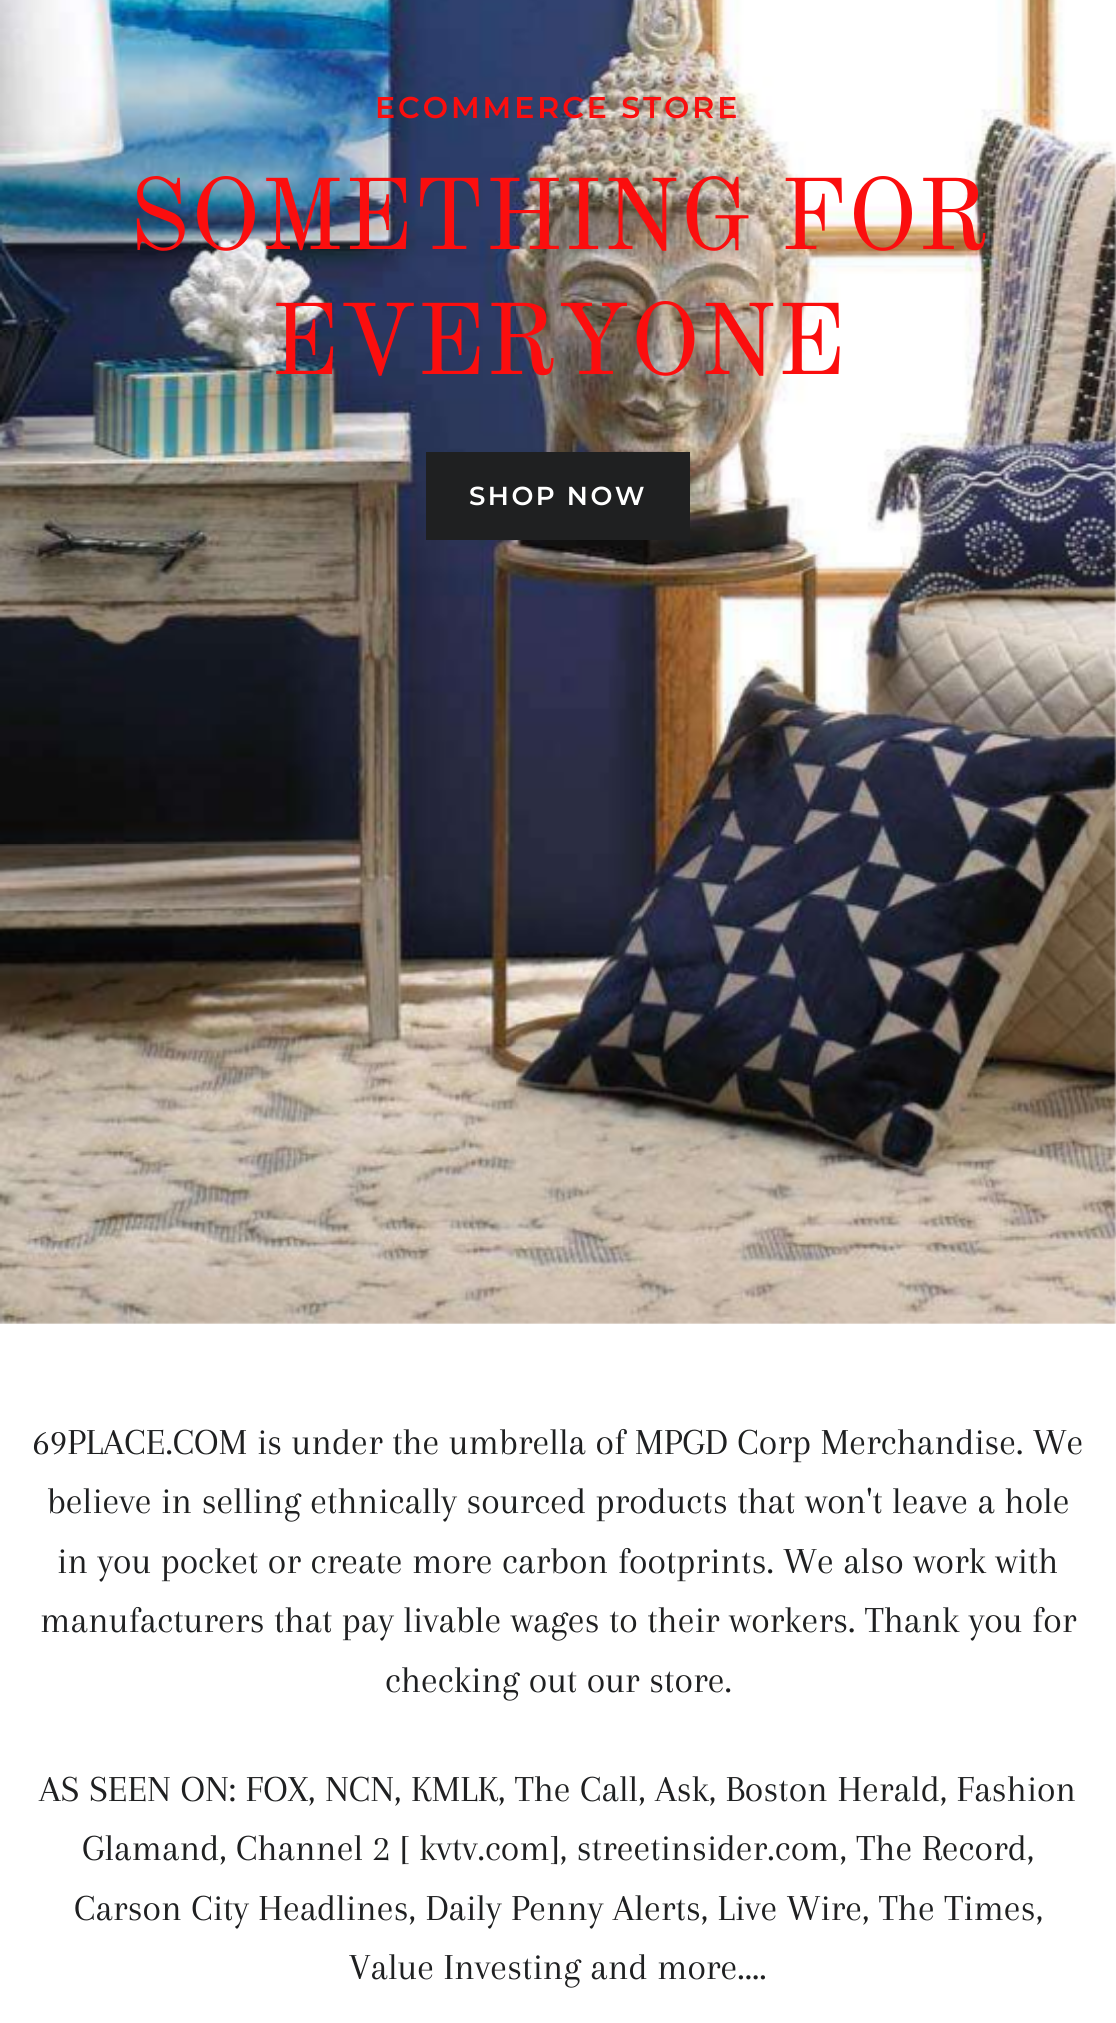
#include <cairo.h>
#include <math.h>
#include <stddef.h>


static void rgb(cairo_t *cr, int r, int g, int b)
{
	cairo_set_source_rgb(cr, r / 255.0, g / 255.0, b / 255.0);
}

static void face(cairo_t *cr, const char *family, double size, int italic, int bold)
{
	cairo_select_font_face(cr, family, italic ? CAIRO_FONT_SLANT_ITALIC : CAIRO_FONT_SLANT_NORMAL,
		bold ? CAIRO_FONT_WEIGHT_BOLD : CAIRO_FONT_WEIGHT_NORMAL);
	cairo_set_font_size(cr, size);
}

static void label(cairo_t *cr, double x, double y, const char *s)
{
	cairo_move_to(cr, x, y);
	cairo_show_text(cr, s);
}

static void tracked(cairo_t *cr, double x, double y, const char *s, double letter, double word)
{
	cairo_move_to(cr, x, y);
	while (*s) {
		char ch[5] = {0};
		int n = 0;
		do ch[n++] = *s++; while ((*s & 0xC0) == 0x80);
		cairo_show_text(cr, ch);
		cairo_rel_move_to(cr, letter + word * (*ch == ' '), 0);
	}
}

static void rect(cairo_t *cr, double x, double y, double w, double h)
{
	cairo_rectangle(cr, x, y, w, h);
	cairo_fill(cr);
}

static void image(cairo_t *cr, const char *path, double x, double y, double w, double h)
{
	cairo_surface_t *image = cairo_image_surface_create_from_png(path);
	cairo_save(cr);
	cairo_set_source_surface(cr, image, x, y);
	cairo_rectangle(cr, x, y, w, h);
	cairo_fill(cr);
	cairo_restore(cr);
	cairo_surface_destroy(image);
}

static void draw(cairo_t *cr) {
	rgb(cr, 255, 255, 255);
	cairo_paint(cr);
	image(cr, "image0.png", 0, 0, 1116, 1324);
	face(cr, "Montserrat SemiBold", 30, 0, 0);
	rgb(cr, 251, 14, 14);
	tracked(cr, 375, 118, "ECOMMERCE STORE", 3, 0);
	face(cr, "Old Standard TT", 100, 0, 0);
	label(cr, 128, 249, "SOMETHING FOR");
	label(cr, 270, 374, "EVERYONE");
	rgb(cr, 31, 32, 33);
	rect(cr, 426, 452, 264, 88);
	face(cr, "Montserrat SemiBold", 26, 0, 0);
	rgb(cr, 255, 255, 255);
	tracked(cr, 469, 505, "SHOP NOW", 2.5, 0);
	face(cr, "Arapey", 38, 0, 0);
	rgb(cr, 31, 32, 33);
	label(cr, 32, 1454, "69PLACE.COM is under the umbrella of MPGD Corp Merchandise. We");
	label(cr, 47, 1513, "believe in selling ethnically sourced products that won't leave a hole");
	label(cr, 57, 1573, "in you pocket or create more carbon footprints. We also work with");
	label(cr, 40, 1632, "manufacturers that pay livable wages to their workers. Thank you for");
	label(cr, 385, 1692, "checking out our store.");
	label(cr, 39, 1801, "AS SEEN ON: FOX, NCN, KMLK, The Call, Ask, Boston Herald, Fashion");
	label(cr, 82, 1860, "Glamand, Channel 2 [ kvtv.com], streetinsider.com, The Record,");
	label(cr, 74, 1920, "Carson City Headlines, Daily Penny Alerts, Live Wire, The Times,");
	label(cr, 349, 1979, "Value Investing and more....");
}

int main(void) {
	cairo_surface_t *surface = cairo_image_surface_create(CAIRO_FORMAT_RGB24, 1116, 2023);
	cairo_t *cr = cairo_create(surface);
	cairo_font_options_t *options = cairo_font_options_create();
	cairo_font_options_set_hint_metrics(options, CAIRO_HINT_METRICS_OFF);
	cairo_font_options_set_hint_style(options, CAIRO_HINT_STYLE_NONE);
	cairo_set_font_options(cr, options);
	cairo_set_miter_limit(cr, 4);
	draw(cr);
	cairo_surface_write_to_png(surface, "render.png");
	cairo_font_options_destroy(options);
	cairo_destroy(cr);
	cairo_surface_destroy(surface);
	return 0;
}
